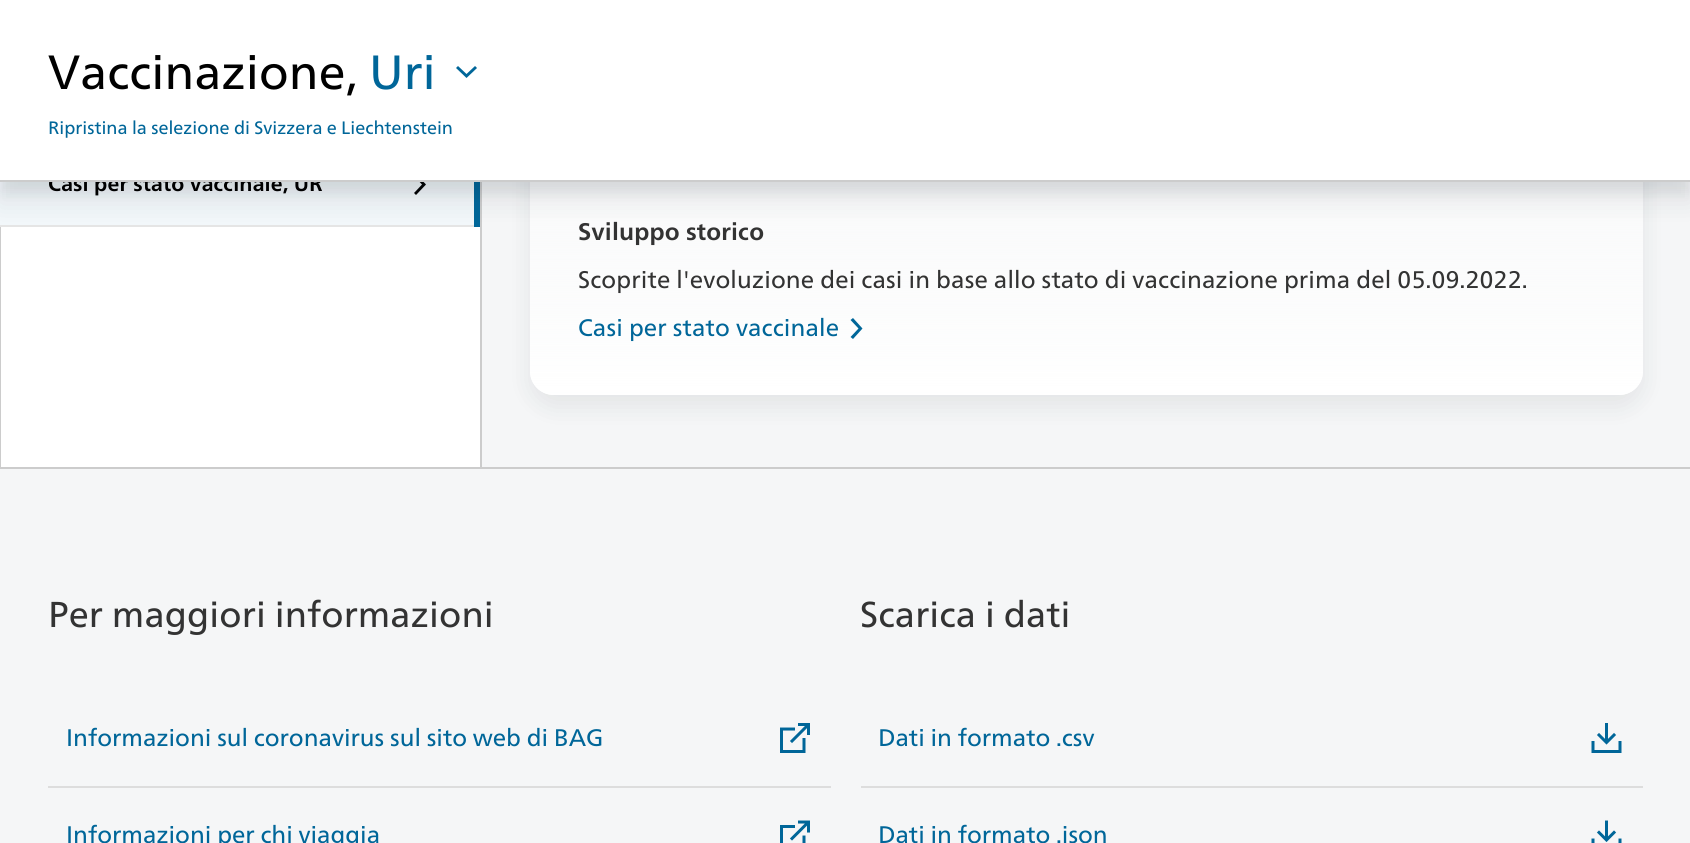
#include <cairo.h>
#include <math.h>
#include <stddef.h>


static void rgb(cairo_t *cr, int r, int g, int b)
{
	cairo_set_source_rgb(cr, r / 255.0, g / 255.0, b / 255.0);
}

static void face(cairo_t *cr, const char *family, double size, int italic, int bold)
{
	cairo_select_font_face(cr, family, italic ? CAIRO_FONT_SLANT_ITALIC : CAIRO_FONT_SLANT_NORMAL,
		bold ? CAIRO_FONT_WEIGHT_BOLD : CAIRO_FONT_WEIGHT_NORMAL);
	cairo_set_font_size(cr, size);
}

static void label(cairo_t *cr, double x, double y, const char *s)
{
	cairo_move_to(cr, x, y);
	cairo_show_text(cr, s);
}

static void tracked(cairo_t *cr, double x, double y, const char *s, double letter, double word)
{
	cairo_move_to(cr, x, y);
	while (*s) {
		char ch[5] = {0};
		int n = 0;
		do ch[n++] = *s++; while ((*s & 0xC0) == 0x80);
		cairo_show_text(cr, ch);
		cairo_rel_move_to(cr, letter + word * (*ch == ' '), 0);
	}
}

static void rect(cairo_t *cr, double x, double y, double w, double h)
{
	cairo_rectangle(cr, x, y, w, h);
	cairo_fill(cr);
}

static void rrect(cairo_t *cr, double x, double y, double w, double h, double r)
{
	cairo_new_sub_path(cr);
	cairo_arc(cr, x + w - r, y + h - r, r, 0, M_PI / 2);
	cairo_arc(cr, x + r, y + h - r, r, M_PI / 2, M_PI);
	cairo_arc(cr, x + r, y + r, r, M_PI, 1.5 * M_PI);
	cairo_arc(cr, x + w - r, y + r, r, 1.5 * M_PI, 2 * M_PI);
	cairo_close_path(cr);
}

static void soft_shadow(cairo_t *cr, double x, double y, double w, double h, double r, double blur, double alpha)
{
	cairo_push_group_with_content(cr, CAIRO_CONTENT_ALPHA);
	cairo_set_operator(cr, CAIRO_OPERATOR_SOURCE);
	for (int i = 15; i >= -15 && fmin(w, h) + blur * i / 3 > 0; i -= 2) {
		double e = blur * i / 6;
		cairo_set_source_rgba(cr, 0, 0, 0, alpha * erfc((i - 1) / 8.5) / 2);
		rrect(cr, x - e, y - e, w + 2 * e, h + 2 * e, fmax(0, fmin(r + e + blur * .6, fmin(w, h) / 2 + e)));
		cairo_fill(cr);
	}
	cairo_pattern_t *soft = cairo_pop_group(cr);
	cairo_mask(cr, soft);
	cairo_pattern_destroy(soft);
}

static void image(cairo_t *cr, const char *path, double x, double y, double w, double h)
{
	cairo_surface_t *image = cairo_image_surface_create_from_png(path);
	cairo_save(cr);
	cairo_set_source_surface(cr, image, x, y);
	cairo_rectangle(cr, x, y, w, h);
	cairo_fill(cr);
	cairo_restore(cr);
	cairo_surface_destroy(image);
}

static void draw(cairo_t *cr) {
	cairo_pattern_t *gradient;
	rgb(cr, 245, 246, 247);
	cairo_paint(cr);
	rgb(cr, 242, 247, 250);
	rect(cr, 0, 182, 474, 43);
	rgb(cr, 229, 229, 229);
	rect(cr, 0, 225, 480, 2);
	rgb(cr, 0, 102, 153);
	rect(cr, 474, 182, 6, 45);
	rgb(cr, 0, 0, 0);
	cairo_set_fill_rule(cr, CAIRO_FILL_RULE_EVEN_ODD);
	cairo_new_path(cr);
	cairo_move_to(cr, 422, 184.5);
	cairo_line_to(cr, 414, 193);
	cairo_line_to(cr, 416, 195);
	cairo_line_to(cr, 426, 184.5);
	cairo_line_to(cr, 416, 174);
	cairo_line_to(cr, 414, 176);
	cairo_close_path(cr);
	cairo_fill(cr);
	rgb(cr, 204, 204, 204);
	rect(cr, 480, 182, 2, 285);
	rgb(cr, 13, 27, 41);
	soft_shadow(cr, 530, -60, 1113, 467, 24, 12, 0.08);
	rgb(cr, 255, 255, 255);
	rrect(cr, 530, -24, 1113, 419, 24);
	cairo_fill(cr);
	gradient = cairo_pattern_create_linear(1086, 166, 1086, 395);
	cairo_pattern_add_color_stop_rgba(gradient, 0, 0.961, 0.965, 0.969, 0.5);
	cairo_pattern_add_color_stop_rgba(gradient, 1, 1, 1, 1, 1);
	cairo_set_source(cr, gradient);
	cairo_pattern_destroy(gradient);
	cairo_new_path(cr);
	cairo_move_to(cr, 530, 167);
	cairo_line_to(cr, 1643, 167);
	cairo_line_to(cr, 1643, 371);
	cairo_curve_to(cr, 1643, 384.5, 1632.5, 395, 1619, 395);
	cairo_line_to(cr, 554, 395);
	cairo_curve_to(cr, 540.5, 395, 530, 384.5, 530, 371);
	cairo_close_path(cr);
	cairo_fill(cr);
	rgb(cr, 13, 27, 41);
	soft_shadow(cr, 0, 102, 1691, 90, 0, 6, 0.08);
	rgb(cr, 255, 255, 255);
	rect(cr, 1, 227, 479, 240);
	rgb(cr, 204, 204, 204);
	rect(cr, 0, 227, 1, 240);
	rgb(cr, 13, 27, 41);
	soft_shadow(cr, 0, 114, 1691, 90, 0, 12, 0.08);
	face(cr, "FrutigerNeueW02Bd", 21, 0, 1);
	rgb(cr, 0, 0, 0);
	tracked(cr, 48, 191, "Casi per stato vaccinale, UR", 0.15, 0);
	rgb(cr, 255, 255, 255);
	rect(cr, 0, 0, 1690, 180);
	rgb(cr, 204, 204, 204);
	rect(cr, 0, 180, 1690, 2);
	face(cr, "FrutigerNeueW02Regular", 48, 0, 0);
	rgb(cr, 0, 0, 0);
	tracked(cr, 48, 89, "Vaccinazione,", 0.15, 0);
	rgb(cr, 0, 102, 153);
	tracked(cr, 369, 89, "Uri", 0.15, 0);
	cairo_new_path(cr);
	cairo_move_to(cr, 466.5, 74);
	cairo_line_to(cr, 458, 66);
	cairo_line_to(cr, 456, 68);
	cairo_line_to(cr, 466.5, 78);
	cairo_line_to(cr, 477, 68);
	cairo_line_to(cr, 475, 66);
	cairo_close_path(cr);
	cairo_fill(cr);
	face(cr, "FrutigerNeueW02Regular", 18, 0, 0);
	label(cr, 48, 134, "Ripristina la selezione di Svizzera e Liechtenstein");
	face(cr, "FrutigerNeueW02Bd", 24, 0, 1);
	rgb(cr, 51, 51, 51);
	tracked(cr, 578, 240, "Sviluppo storico", 0.15, 0);
	face(cr, "FrutigerNeueW02Regular", 24, 0, 0);
	tracked(cr, 578, 288, "Scoprite l'evoluzione dei casi in base allo stato di vaccinazione prima del 05.09.2022.", 0.15, 0);
	rgb(cr, 0, 102, 153);
	tracked(cr, 578, 336, "Casi per stato vaccinale", 0.15, 0);
	cairo_new_path(cr);
	cairo_move_to(cr, 858.5, 328.5);
	cairo_line_to(cr, 850.5, 337);
	cairo_line_to(cr, 853, 339);
	cairo_line_to(cr, 862.5, 328.5);
	cairo_line_to(cr, 853, 318);
	cairo_line_to(cr, 850.5, 320);
	cairo_close_path(cr);
	cairo_fill(cr);
	rgb(cr, 204, 204, 204);
	rect(cr, 0, 467, 1690, 2);
	face(cr, "FrutigerNeueW02Regular", 36, 0, 0);
	rgb(cr, 51, 51, 51);
	tracked(cr, 48, 627, "Per maggiori informazioni", 0.15, 0);
	rgb(cr, 221, 221, 221);
	rect(cr, 48, 786, 783, 2);
	face(cr, "FrutigerNeueW02Regular", 24, 0, 0);
	rgb(cr, 0, 102, 153);
	label(cr, 66, 746, "Informazioni sul coronavirus sul sito web di BAG");
	image(cr, "image0.png", 780, 723, 30, 30);
	label(cr, 66, 843, "Informazioni per chi viaggia");
	image(cr, "image1.png", 780, 820, 30, 23);
	face(cr, "FrutigerNeueW02Regular", 36, 0, 0);
	rgb(cr, 51, 51, 51);
	tracked(cr, 860, 627, "Scarica i dati", 0.15, 0);
	rgb(cr, 221, 221, 221);
	rect(cr, 861, 786, 782, 2);
	face(cr, "FrutigerNeueW02Regular", 24, 0, 0);
	rgb(cr, 0, 102, 153);
	label(cr, 878, 746, "Dati in formato .csv");
	image(cr, "image2.png", 1591, 723, 31, 30);
	label(cr, 878, 843, "Dati in formato .json");
	image(cr, "image3.png", 1591, 820, 31, 23);
}

int main(void) {
	cairo_surface_t *surface = cairo_image_surface_create(CAIRO_FORMAT_RGB24, 1690, 843);
	cairo_t *cr = cairo_create(surface);
	cairo_font_options_t *options = cairo_font_options_create();
	cairo_font_options_set_hint_metrics(options, CAIRO_HINT_METRICS_OFF);
	cairo_font_options_set_hint_style(options, CAIRO_HINT_STYLE_NONE);
	cairo_set_font_options(cr, options);
	cairo_set_miter_limit(cr, 4);
	draw(cr);
	cairo_surface_write_to_png(surface, "render.png");
	cairo_font_options_destroy(options);
	cairo_destroy(cr);
	cairo_surface_destroy(surface);
	return 0;
}
